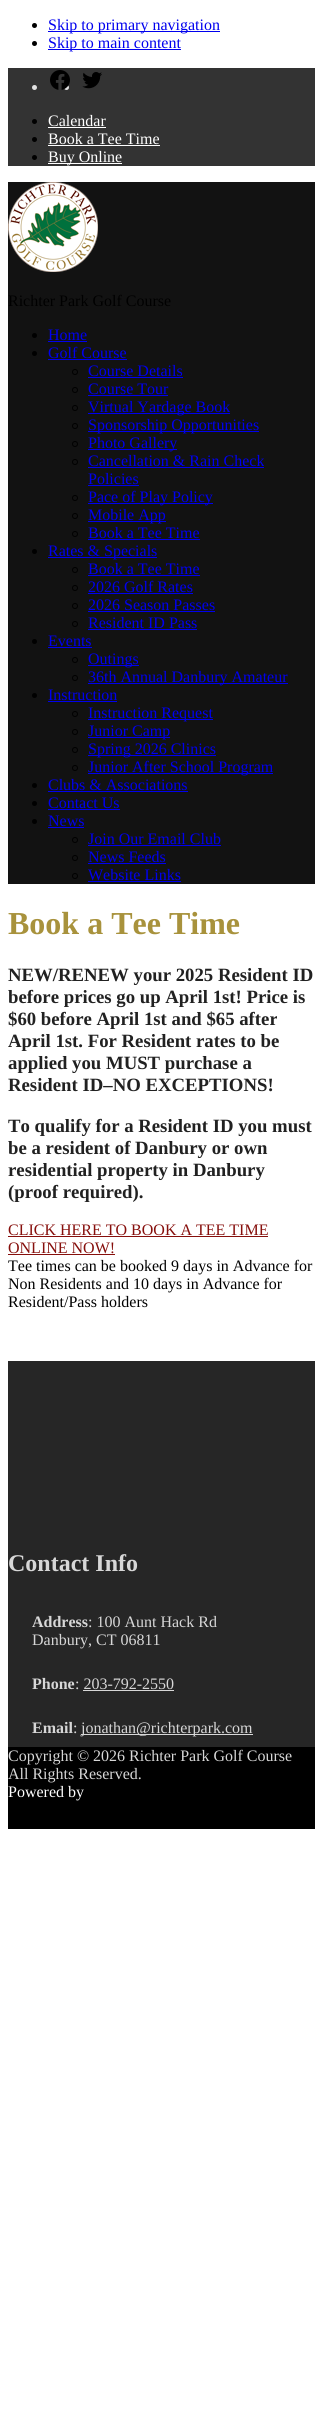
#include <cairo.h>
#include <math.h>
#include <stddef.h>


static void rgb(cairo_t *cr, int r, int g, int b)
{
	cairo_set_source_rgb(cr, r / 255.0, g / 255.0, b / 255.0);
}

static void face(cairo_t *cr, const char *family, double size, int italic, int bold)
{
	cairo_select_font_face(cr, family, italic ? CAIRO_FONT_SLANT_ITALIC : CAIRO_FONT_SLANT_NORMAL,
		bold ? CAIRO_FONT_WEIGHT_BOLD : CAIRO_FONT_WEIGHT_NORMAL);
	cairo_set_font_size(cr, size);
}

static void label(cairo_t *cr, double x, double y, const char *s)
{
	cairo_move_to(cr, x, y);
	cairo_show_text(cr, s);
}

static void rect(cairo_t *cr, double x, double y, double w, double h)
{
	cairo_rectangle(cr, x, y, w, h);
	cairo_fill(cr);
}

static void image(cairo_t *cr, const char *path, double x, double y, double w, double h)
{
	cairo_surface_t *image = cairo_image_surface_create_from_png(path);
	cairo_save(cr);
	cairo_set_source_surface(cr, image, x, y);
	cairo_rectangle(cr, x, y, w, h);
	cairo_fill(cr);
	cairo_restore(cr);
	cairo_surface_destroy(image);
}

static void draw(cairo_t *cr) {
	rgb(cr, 255, 255, 255);
	cairo_paint(cr);
	rgb(cr, 0, 0, 0);
	cairo_arc(cr, 34.5, 25.5, 2.5, 0, 2 * M_PI);
	cairo_fill(cr);
	rgb(cr, 0, 0, 238);
	rect(cr, 48, 31, 172, 1);
	face(cr, "Liberation Serif", 16, 0, 0);
	label(cr, 48, 30, "Skip to primary navigation");
	rgb(cr, 0, 0, 0);
	cairo_new_path(cr);
	cairo_arc(cr, 34.5, 43.5, 2.5, 0, 2 * M_PI);
	cairo_fill(cr);
	rgb(cr, 0, 0, 238);
	rect(cr, 48, 49, 133, 1);
	label(cr, 48, 48, "Skip to main content");
	rgb(cr, 51, 51, 51);
	rect(cr, 8, 68, 307, 98);
	rgb(cr, 225, 225, 225);
	cairo_new_path(cr);
	cairo_arc(cr, 34.5, 87.5, 2.5, 0, 2 * M_PI);
	cairo_fill(cr);
	cairo_arc(cr, 66.5, 87.5, 2.5, 0, 2 * M_PI);
	cairo_fill(cr);
	image(cr, "image0.png", 50, 70, 20, 20);
	image(cr, "image1.png", 82, 72, 20, 17);
	rgb(cr, 0, 0, 0);
	cairo_arc(cr, 34.5, 121.5, 2.5, 0, 2 * M_PI);
	cairo_fill(cr);
	rgb(cr, 255, 255, 255);
	label(cr, 48, 126, "Calendar");
	rect(cr, 48, 127, 58, 1);
	rgb(cr, 0, 0, 0);
	cairo_new_path(cr);
	cairo_arc(cr, 34.5, 139.5, 2.5, 0, 2 * M_PI);
	cairo_fill(cr);
	rgb(cr, 255, 255, 255);
	label(cr, 48, 144, "Book a Tee Time");
	rect(cr, 48, 145, 112, 1);
	rgb(cr, 0, 0, 0);
	cairo_new_path(cr);
	cairo_arc(cr, 34.5, 157.5, 2.5, 0, 2 * M_PI);
	cairo_fill(cr);
	rgb(cr, 255, 255, 255);
	rect(cr, 48, 163, 74, 1);
	label(cr, 48, 162, "Buy Online");
	rgb(cr, 18, 18, 18);
	rect(cr, 8, 182, 307, 702);
	image(cr, "image2.png", 8, 182, 90, 90);
	rgb(cr, 0, 0, 0);
	label(cr, 8, 306, "Richter Park Golf Course");
	cairo_new_path(cr);
	cairo_arc(cr, 34.5, 335.5, 2.5, 0, 2 * M_PI);
	cairo_fill(cr);
	rgb(cr, 0, 0, 238);
	label(cr, 48, 340, "Home");
	rect(cr, 48, 341, 39, 1);
	rgb(cr, 0, 0, 0);
	cairo_new_path(cr);
	cairo_arc(cr, 34.5, 353.5, 2.5, 0, 2 * M_PI);
	cairo_fill(cr);
	rgb(cr, 0, 0, 238);
	label(cr, 48, 358, "Golf Course");
	rect(cr, 48, 359, 79, 1);
	cairo_new_path(cr);
	cairo_arc(cr, 75, 372, 2.5, 0, 2 * M_PI);
	rgb(cr, 0, 0, 0);
	cairo_set_line_width(cr, 1);
	cairo_stroke(cr);
	rgb(cr, 0, 0, 238);
	label(cr, 88, 376, "Course Details");
	rect(cr, 88, 377, 95, 1);
	cairo_new_path(cr);
	cairo_arc(cr, 75, 390, 2.5, 0, 2 * M_PI);
	rgb(cr, 0, 0, 0);
	cairo_stroke(cr);
	rgb(cr, 0, 0, 238);
	label(cr, 88, 394, "Course Tour");
	rect(cr, 88, 395, 80, 1);
	cairo_new_path(cr);
	cairo_arc(cr, 75, 408, 2.5, 0, 2 * M_PI);
	rgb(cr, 0, 0, 0);
	cairo_stroke(cr);
	rgb(cr, 0, 0, 238);
	rect(cr, 88, 413, 142, 1);
	label(cr, 88, 412, "Virtual Yardage Book");
	cairo_new_path(cr);
	cairo_arc(cr, 75, 426, 2.5, 0, 2 * M_PI);
	rgb(cr, 0, 0, 0);
	cairo_stroke(cr);
	rgb(cr, 0, 0, 238);
	rect(cr, 88, 431, 171, 1);
	label(cr, 88, 430, "Sponsorship Opportunities");
	cairo_new_path(cr);
	cairo_arc(cr, 75, 444, 2.5, 0, 2 * M_PI);
	rgb(cr, 0, 0, 0);
	cairo_stroke(cr);
	rgb(cr, 0, 0, 238);
	rect(cr, 88, 449, 89, 1);
	label(cr, 88, 448, "Photo Gallery");
	cairo_new_path(cr);
	cairo_arc(cr, 75, 462, 2.5, 0, 2 * M_PI);
	rgb(cr, 0, 0, 0);
	cairo_stroke(cr);
	rgb(cr, 0, 0, 238);
	label(cr, 88, 466, "Cancellation & Rain Check");
	rect(cr, 88, 467, 176, 1);
	label(cr, 88, 484, "Policies");
	rect(cr, 88, 485, 51, 1);
	cairo_new_path(cr);
	cairo_arc(cr, 75, 498, 2.5, 0, 2 * M_PI);
	rgb(cr, 0, 0, 0);
	cairo_stroke(cr);
	rgb(cr, 0, 0, 238);
	rect(cr, 88, 503, 125, 1);
	label(cr, 88, 502, "Pace of Play Policy");
	cairo_new_path(cr);
	cairo_arc(cr, 75, 516, 2.5, 0, 2 * M_PI);
	rgb(cr, 0, 0, 0);
	cairo_stroke(cr);
	rgb(cr, 0, 0, 238);
	rect(cr, 88, 521, 78, 1);
	label(cr, 88, 520, "Mobile App");
	cairo_new_path(cr);
	cairo_arc(cr, 75, 534, 2.5, 0, 2 * M_PI);
	rgb(cr, 0, 0, 0);
	cairo_stroke(cr);
	rgb(cr, 0, 0, 238);
	label(cr, 88, 538, "Book a Tee Time");
	rect(cr, 88, 539, 112, 1);
	rgb(cr, 0, 0, 0);
	cairo_new_path(cr);
	cairo_arc(cr, 34.5, 551.5, 2.5, 0, 2 * M_PI);
	cairo_fill(cr);
	rgb(cr, 0, 0, 238);
	rect(cr, 48, 557, 109, 1);
	label(cr, 48, 556, "Rates & Specials");
	cairo_new_path(cr);
	cairo_arc(cr, 75, 570, 2.5, 0, 2 * M_PI);
	rgb(cr, 0, 0, 0);
	cairo_stroke(cr);
	rgb(cr, 0, 0, 238);
	label(cr, 88, 574, "Book a Tee Time");
	rect(cr, 88, 575, 112, 1);
	cairo_new_path(cr);
	cairo_arc(cr, 75, 588, 2.5, 0, 2 * M_PI);
	rgb(cr, 0, 0, 0);
	cairo_stroke(cr);
	rgb(cr, 0, 0, 238);
	label(cr, 88, 592, "2026 Golf Rates");
	rect(cr, 88, 593, 105, 1);
	cairo_new_path(cr);
	cairo_arc(cr, 75, 606, 2.5, 0, 2 * M_PI);
	rgb(cr, 0, 0, 0);
	cairo_stroke(cr);
	rgb(cr, 0, 0, 238);
	label(cr, 88, 610, "2026 Season Passes");
	rect(cr, 88, 611, 127, 1);
	cairo_new_path(cr);
	cairo_arc(cr, 75, 624, 2.5, 0, 2 * M_PI);
	rgb(cr, 0, 0, 0);
	cairo_stroke(cr);
	rgb(cr, 0, 0, 238);
	label(cr, 88, 628, "Resident ID Pass");
	rect(cr, 88, 629, 109, 1);
	rgb(cr, 0, 0, 0);
	cairo_new_path(cr);
	cairo_arc(cr, 34.5, 641.5, 2.5, 0, 2 * M_PI);
	cairo_fill(cr);
	rgb(cr, 0, 0, 238);
	label(cr, 48, 646, "Events");
	rect(cr, 48, 647, 44, 1);
	cairo_new_path(cr);
	cairo_arc(cr, 75, 660, 2.5, 0, 2 * M_PI);
	rgb(cr, 0, 0, 0);
	cairo_stroke(cr);
	rgb(cr, 0, 0, 238);
	rect(cr, 88, 665, 51, 1);
	label(cr, 88, 664, "Outings");
	cairo_new_path(cr);
	cairo_arc(cr, 75, 678, 2.5, 0, 2 * M_PI);
	rgb(cr, 0, 0, 0);
	cairo_stroke(cr);
	rgb(cr, 0, 0, 238);
	rect(cr, 88, 683, 200, 1);
	label(cr, 88, 682, "36th Annual Danbury Amateur");
	rgb(cr, 0, 0, 0);
	cairo_new_path(cr);
	cairo_arc(cr, 34.5, 695.5, 2.5, 0, 2 * M_PI);
	cairo_fill(cr);
	rgb(cr, 0, 0, 238);
	label(cr, 48, 700, "Instruction");
	rect(cr, 48, 701, 69, 1);
	cairo_new_path(cr);
	cairo_arc(cr, 75, 714, 2.5, 0, 2 * M_PI);
	rgb(cr, 0, 0, 0);
	cairo_stroke(cr);
	rgb(cr, 0, 0, 238);
	rect(cr, 88, 719, 125, 1);
	label(cr, 88, 718, "Instruction Request");
	cairo_new_path(cr);
	cairo_arc(cr, 75, 732, 2.5, 0, 2 * M_PI);
	rgb(cr, 0, 0, 0);
	cairo_stroke(cr);
	rgb(cr, 0, 0, 238);
	rect(cr, 88, 737, 82, 1);
	label(cr, 88, 736, "Junior Camp");
	cairo_new_path(cr);
	cairo_arc(cr, 75, 750, 2.5, 0, 2 * M_PI);
	rgb(cr, 0, 0, 0);
	cairo_stroke(cr);
	rgb(cr, 0, 0, 238);
	rect(cr, 88, 755, 128, 1);
	label(cr, 88, 754, "Spring 2026 Clinics");
	cairo_new_path(cr);
	cairo_arc(cr, 75, 768, 2.5, 0, 2 * M_PI);
	rgb(cr, 0, 0, 0);
	cairo_stroke(cr);
	rgb(cr, 0, 0, 238);
	rect(cr, 88, 773, 185, 1);
	label(cr, 88, 772, "Junior After School Program");
	rgb(cr, 0, 0, 0);
	cairo_new_path(cr);
	cairo_arc(cr, 34.5, 785.5, 2.5, 0, 2 * M_PI);
	cairo_fill(cr);
	rgb(cr, 0, 0, 238);
	label(cr, 48, 790, "Clubs & Associations");
	rect(cr, 48, 791, 140, 1);
	rgb(cr, 0, 0, 0);
	cairo_new_path(cr);
	cairo_arc(cr, 34.5, 803.5, 2.5, 0, 2 * M_PI);
	cairo_fill(cr);
	rgb(cr, 0, 0, 238);
	label(cr, 48, 808, "Contact Us");
	rect(cr, 48, 809, 72, 1);
	rgb(cr, 0, 0, 0);
	cairo_new_path(cr);
	cairo_arc(cr, 34.5, 821.5, 2.5, 0, 2 * M_PI);
	cairo_fill(cr);
	rgb(cr, 0, 0, 238);
	label(cr, 48, 826, "News");
	rect(cr, 48, 827, 36, 1);
	cairo_new_path(cr);
	cairo_arc(cr, 75, 840, 2.5, 0, 2 * M_PI);
	rgb(cr, 0, 0, 0);
	cairo_stroke(cr);
	rgb(cr, 0, 0, 238);
	label(cr, 88, 844, "Join Our Email Club");
	rect(cr, 88, 845, 133, 1);
	cairo_new_path(cr);
	cairo_arc(cr, 75, 858, 2.5, 0, 2 * M_PI);
	rgb(cr, 0, 0, 0);
	cairo_stroke(cr);
	rgb(cr, 0, 0, 238);
	label(cr, 88, 862, "News Feeds");
	rect(cr, 88, 863, 78, 1);
	cairo_new_path(cr);
	cairo_arc(cr, 75, 876, 2.5, 0, 2 * M_PI);
	rgb(cr, 0, 0, 0);
	cairo_stroke(cr);
	rgb(cr, 0, 0, 238);
	label(cr, 88, 880, "Website Links");
	rect(cr, 88, 881, 93, 1);
	face(cr, "Liberation Serif", 32, 0, 1);
	rgb(cr, 168, 146, 60);
	label(cr, 8, 934, "Book a Tee Time");
	face(cr, "Liberation Serif", 18.75, 0, 1);
	rgb(cr, 33, 33, 33);
	label(cr, 8, 981, "NEW/RENEW your 2025 Resident ID");
	label(cr, 8, 1003, "before prices go up April 1st! Price is");
	label(cr, 8, 1025, "$60 before April 1st and $65 after");
	label(cr, 8, 1047, "April 1st. For Resident rates to be");
	label(cr, 8, 1069, "applied you MUST purchase a");
	label(cr, 8, 1091, "Resident ID–NO EXCEPTIONS!");
	label(cr, 8, 1132, "To qualify for a Resident ID you must");
	label(cr, 8, 1154, "be a resident of Danbury or own");
	label(cr, 8, 1176, "residential property in Danbury");
	label(cr, 8, 1198, "(proof required).");
	face(cr, "Liberation Serif", 16, 0, 0);
	rgb(cr, 134, 15, 12);
	label(cr, 8, 1235, "CLICK HERE TO BOOK A TEE TIME");
	rect(cr, 8, 1236, 260, 1);
	label(cr, 8, 1253, "ONLINE NOW!");
	rect(cr, 8, 1254, 107, 1);
	rgb(cr, 0, 0, 0);
	label(cr, 8, 1271, "Tee times can be booked 9 days in Advance for");
	label(cr, 8, 1289, "Non Residents and 10 days in Advance for");
	label(cr, 8, 1307, "Resident/Pass holders");
	rgb(cr, 38, 38, 38);
	rect(cr, 8, 1361, 307, 386);
	face(cr, "Liberation Serif", 24, 0, 1);
	rgb(cr, 215, 215, 215);
	label(cr, 8, 1571, "Contact Info");
	face(cr, "Liberation Serif", 16, 0, 1);
	label(cr, 32, 1627, "Address");
	face(cr, "Liberation Serif", 16, 0, 0);
	label(cr, 88, 1627, ": 100 Aunt Hack Rd");
	label(cr, 32, 1645, "Danbury, CT 06811");
	face(cr, "Liberation Serif", 16, 0, 1);
	label(cr, 32, 1689, "Phone");
	face(cr, "Liberation Serif", 16, 0, 0);
	label(cr, 75, 1689, ": 203-792-2550");
	rect(cr, 83, 1690, 91, 1);
	face(cr, "Liberation Serif", 16, 0, 1);
	label(cr, 32, 1733, "Email");
	face(cr, "Liberation Serif", 16, 0, 0);
	label(cr, 73, 1733, ":");
	rect(cr, 81, 1734, 172, 1);
	label(cr, 81, 1733, "jonathan@richterpark.com");
	rgb(cr, 0, 0, 0);
	rect(cr, 8, 1747, 307, 82);
	rgb(cr, 215, 215, 215);
	label(cr, 8, 1761, "Copyright © 2026 Richter Park Golf Course");
	label(cr, 8, 1779, "All Rights Reserved.");
	rgb(cr, 255, 255, 255);
	label(cr, 8, 1797, "Powered by");
}

int main(void) {
	cairo_surface_t *surface = cairo_image_surface_create(CAIRO_FORMAT_RGB24, 323, 2432);
	cairo_t *cr = cairo_create(surface);
	cairo_font_options_t *options = cairo_font_options_create();
	cairo_font_options_set_hint_metrics(options, CAIRO_HINT_METRICS_OFF);
	cairo_font_options_set_hint_style(options, CAIRO_HINT_STYLE_NONE);
	cairo_set_font_options(cr, options);
	cairo_set_miter_limit(cr, 4);
	draw(cr);
	cairo_surface_write_to_png(surface, "render.png");
	cairo_font_options_destroy(options);
	cairo_destroy(cr);
	cairo_surface_destroy(surface);
	return 0;
}
